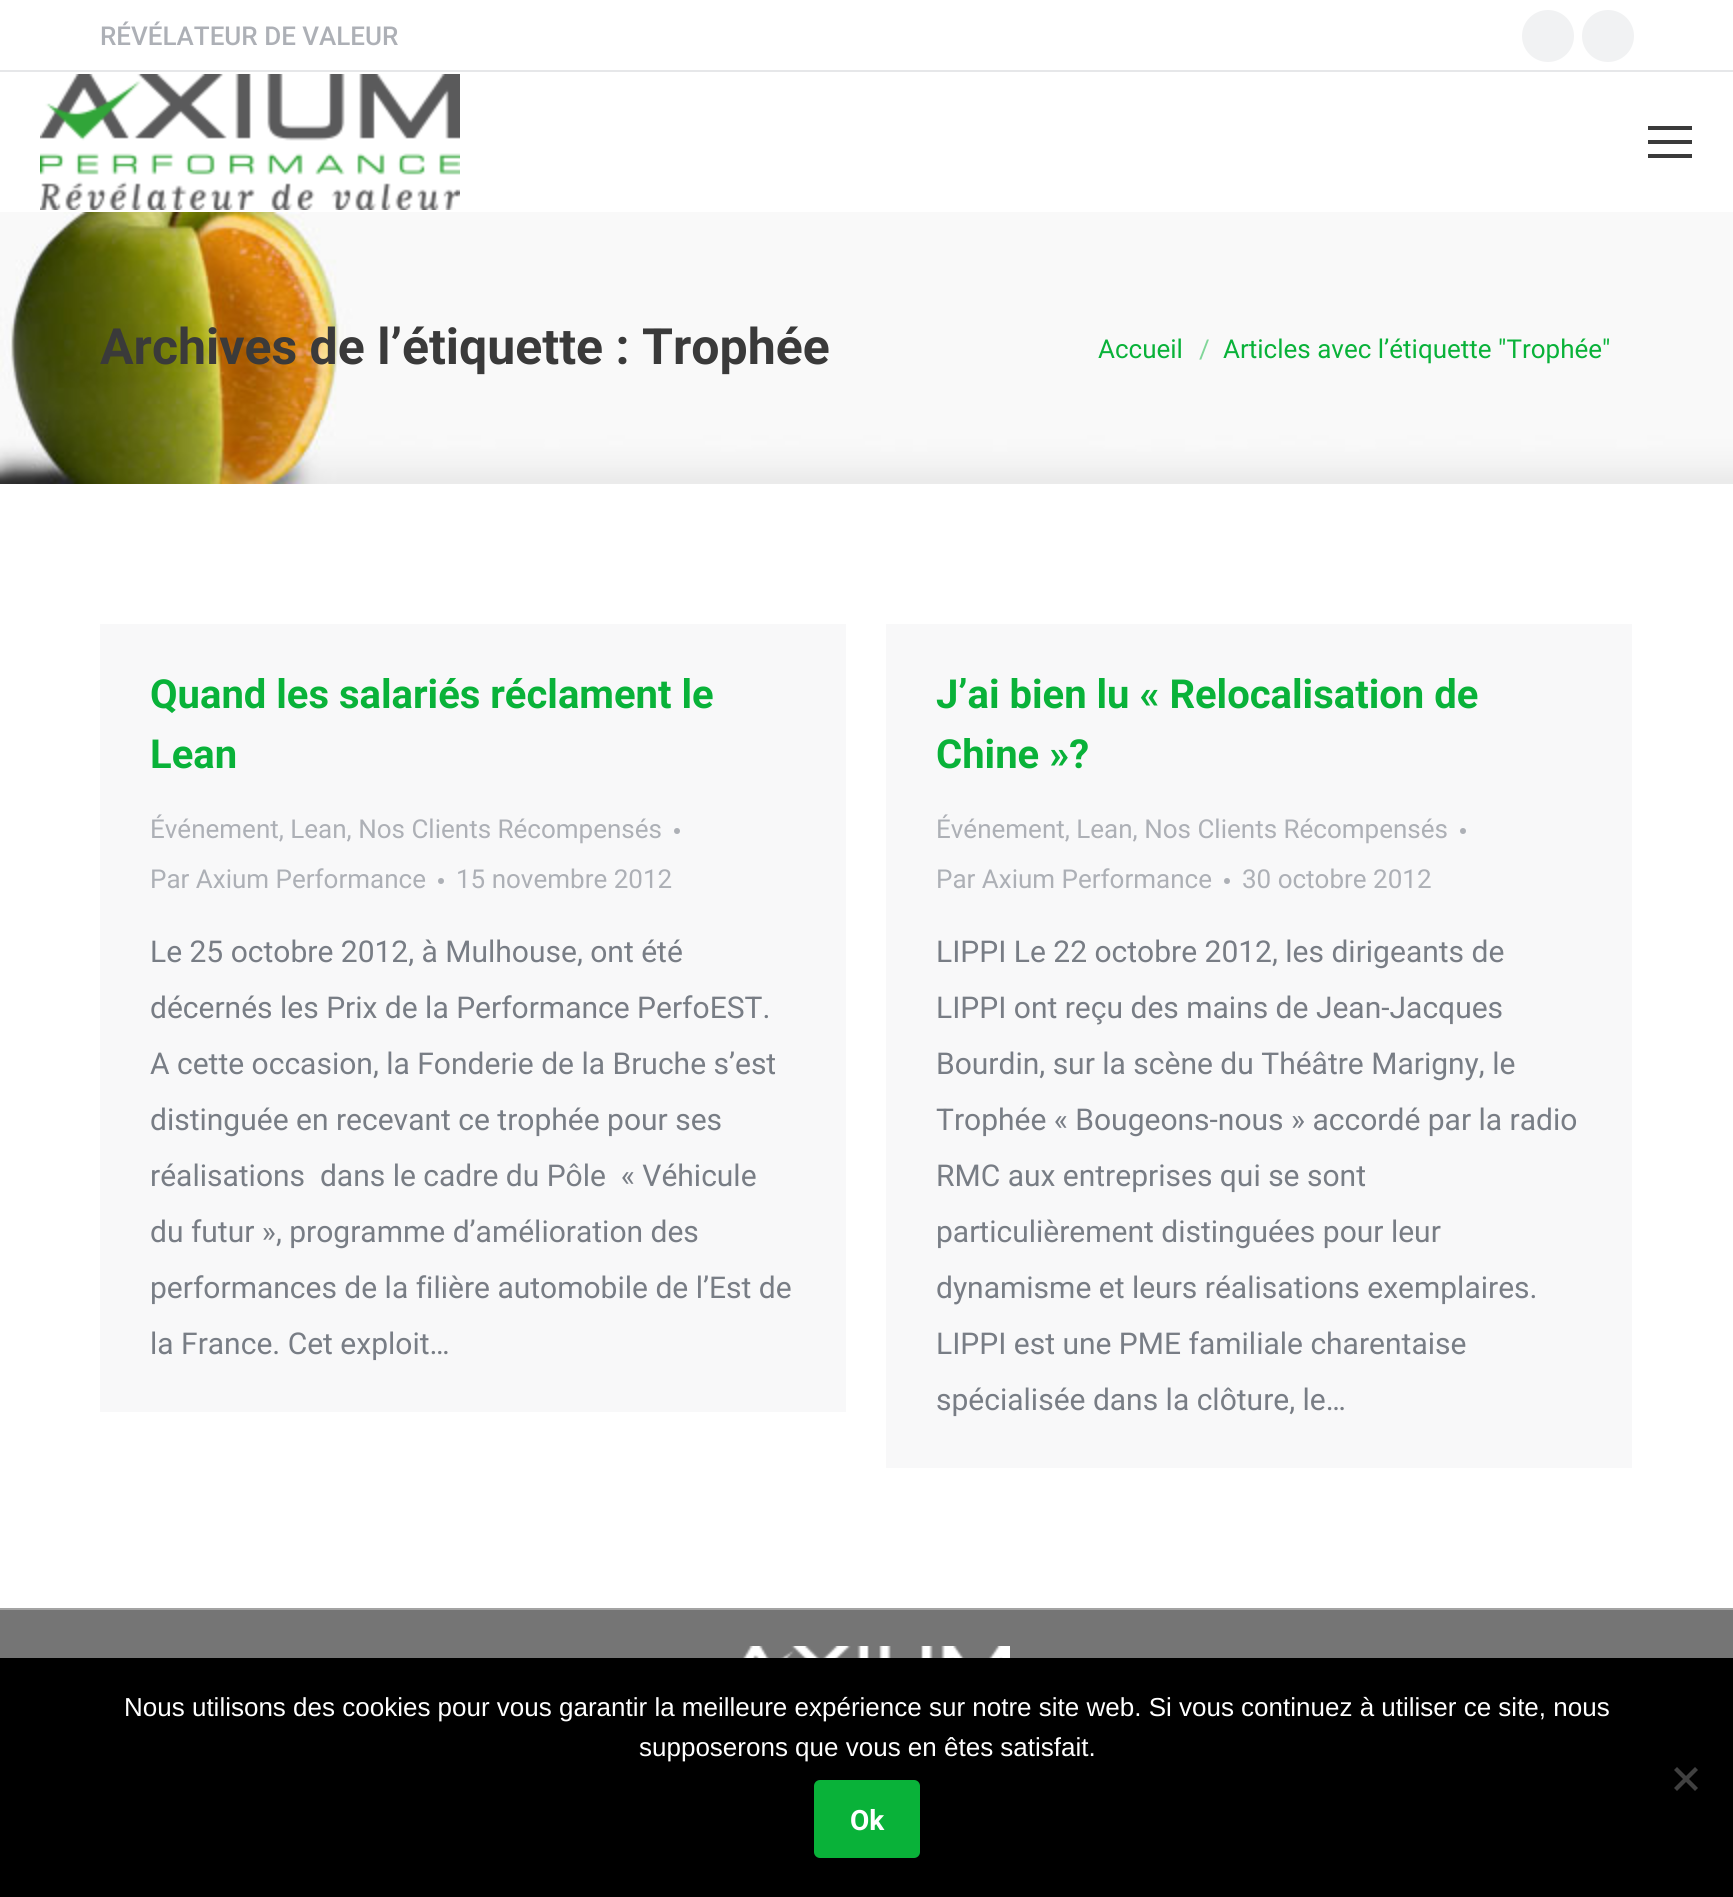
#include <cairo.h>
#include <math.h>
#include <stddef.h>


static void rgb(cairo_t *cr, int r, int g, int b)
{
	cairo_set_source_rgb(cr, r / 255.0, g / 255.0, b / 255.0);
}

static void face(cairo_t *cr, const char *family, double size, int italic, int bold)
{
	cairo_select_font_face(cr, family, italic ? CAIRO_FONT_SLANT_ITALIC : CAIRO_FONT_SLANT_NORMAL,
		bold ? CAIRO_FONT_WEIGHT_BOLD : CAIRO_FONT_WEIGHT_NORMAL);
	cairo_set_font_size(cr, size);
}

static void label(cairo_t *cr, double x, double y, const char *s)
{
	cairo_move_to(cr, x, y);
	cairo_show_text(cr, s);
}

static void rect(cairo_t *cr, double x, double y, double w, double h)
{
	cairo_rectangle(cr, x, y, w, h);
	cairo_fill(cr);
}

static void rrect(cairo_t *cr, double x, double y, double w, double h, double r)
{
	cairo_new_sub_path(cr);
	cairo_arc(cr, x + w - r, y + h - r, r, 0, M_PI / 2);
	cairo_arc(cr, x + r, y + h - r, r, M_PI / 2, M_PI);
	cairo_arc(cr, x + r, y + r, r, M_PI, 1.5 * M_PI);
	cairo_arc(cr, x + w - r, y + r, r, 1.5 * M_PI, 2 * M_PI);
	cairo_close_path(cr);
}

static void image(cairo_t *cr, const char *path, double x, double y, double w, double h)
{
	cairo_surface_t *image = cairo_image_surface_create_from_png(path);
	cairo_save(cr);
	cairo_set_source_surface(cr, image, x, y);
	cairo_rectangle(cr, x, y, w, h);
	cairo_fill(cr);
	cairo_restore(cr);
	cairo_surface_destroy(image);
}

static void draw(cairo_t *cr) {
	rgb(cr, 255, 255, 255);
	cairo_paint(cr);
	face(cr, "Roboto Medium", 26, 0, 0);
	rgb(cr, 173, 176, 182);
	label(cr, 100, 45, "RÉVÉLATEUR DE VALEUR");
	rgb(cr, 241, 242, 243);
	cairo_new_path(cr);
	cairo_arc(cr, 1548, 36, 26, 0, 2 * M_PI);
	cairo_fill(cr);
	cairo_arc(cr, 1608, 36, 26, 0, 2 * M_PI);
	cairo_fill(cr);
	rgb(cr, 230, 231, 233);
	rect(cr, 0, 70, 1733, 2);
	image(cr, "image0.png", 40, 74, 420, 136);
	rgb(cr, 58, 58, 58);
	rect(cr, 1648, 126, 44, 4);
	rect(cr, 1648, 140, 44, 4);
	rect(cr, 1648, 154, 44, 4);
	image(cr, "image1.png", 0, 212, 1733, 272);
	face(cr, "Roboto", 50, 0, 1);
	label(cr, 100, 364, "Archives de l’étiquette : Trophée");
	face(cr, "Roboto", 26, 0, 0);
	rgb(cr, 9, 178, 57);
	label(cr, 1098, 358, "Accueil");
	rgb(cr, 129, 214, 153);
	label(cr, 1199, 358, "/");
	rgb(cr, 9, 178, 57);
	label(cr, 1223, 358, "Articles avec l’étiquette \"Trophée\"");
	rgb(cr, 248, 248, 249);
	rect(cr, 100, 624, 746, 788);
	face(cr, "Roboto", 40, 0, 1);
	rgb(cr, 9, 178, 57);
	label(cr, 150, 708, "Quand les salariés réclament le");
	label(cr, 150, 768, "Lean");
	face(cr, "Roboto", 26, 0, 0);
	rgb(cr, 173, 176, 182);
	label(cr, 150, 838, "Événement, Lean, Nos Clients Récompensés");
	cairo_new_path(cr);
	cairo_arc(cr, 677, 831, 3, 0, 2 * M_PI);
	cairo_fill(cr);
	label(cr, 150, 888, "Par Axium Performance");
	cairo_new_path(cr);
	cairo_arc(cr, 441, 881, 3, 0, 2 * M_PI);
	cairo_fill(cr);
	label(cr, 456, 888, "15 novembre 2012");
	face(cr, "Roboto", 30, 0, 0);
	rgb(cr, 120, 125, 133);
	label(cr, 150, 962, "Le 25 octobre 2012, à Mulhouse, ont été");
	label(cr, 150, 1018, "décernés les Prix de la Performance PerfoEST.");
	label(cr, 150, 1074, "A cette occasion, la Fonderie de la Bruche s’est");
	label(cr, 150, 1130, "distinguée en recevant ce trophée pour ses");
	label(cr, 150, 1186, "réalisations  dans le cadre du Pôle  « Véhicule");
	label(cr, 150, 1242, "du futur », programme d’amélioration des");
	label(cr, 150, 1298, "performances de la filière automobile de l’Est de");
	label(cr, 150, 1354, "la France. Cet exploit…");
	rgb(cr, 248, 248, 249);
	rect(cr, 886, 624, 746, 844);
	face(cr, "Roboto", 40, 0, 1);
	rgb(cr, 9, 178, 57);
	label(cr, 936, 708, "J’ai bien lu « Relocalisation de");
	label(cr, 936, 768, "Chine »?");
	face(cr, "Roboto", 26, 0, 0);
	rgb(cr, 173, 176, 182);
	label(cr, 936, 838, "Événement, Lean, Nos Clients Récompensés");
	cairo_new_path(cr);
	cairo_arc(cr, 1463, 831, 3, 0, 2 * M_PI);
	cairo_fill(cr);
	label(cr, 936, 888, "Par Axium Performance");
	cairo_new_path(cr);
	cairo_arc(cr, 1227, 881, 3, 0, 2 * M_PI);
	cairo_fill(cr);
	label(cr, 1242, 888, "30 octobre 2012");
	face(cr, "Roboto", 30, 0, 0);
	rgb(cr, 120, 125, 133);
	label(cr, 936, 962, "LIPPI Le 22 octobre 2012, les dirigeants de");
	label(cr, 936, 1018, "LIPPI ont reçu des mains de Jean-Jacques");
	label(cr, 936, 1074, "Bourdin, sur la scène du Théâtre Marigny, le");
	label(cr, 936, 1130, "Trophée « Bougeons-nous » accordé par la radio");
	label(cr, 936, 1186, "RMC aux entreprises qui se sont");
	label(cr, 936, 1242, "particulièrement distinguées pour leur");
	label(cr, 936, 1298, "dynamisme et leurs réalisations exemplaires.");
	label(cr, 936, 1354, "LIPPI est une PME familiale charentaise");
	label(cr, 936, 1410, "spécialisée dans la clôture, le…");
	rgb(cr, 117, 117, 117);
	rect(cr, 0, 1610, 1733, 48);
	rgb(cr, 163, 163, 163);
	rect(cr, 0, 1608, 1733, 2);
	image(cr, "image2.png", 742, 1646, 268, 12);
	rgb(cr, 0, 0, 0);
	rect(cr, 0, 1658, 1733, 239);
	face(cr, "Liberation Sans", 26, 0, 0);
	rgb(cr, 255, 255, 255);
	label(cr, 124, 1716, "Nous utilisons des cookies pour vous garantir la meilleure expérience sur notre site web. Si vous continuez à utiliser ce site, nous");
	label(cr, 639, 1756, "supposerons que vous en êtes satisfait.");
	rgb(cr, 64, 64, 64);
	cairo_new_path(cr);
	cairo_move_to(cr, 1695, 1767);
	cairo_line_to(cr, 1698, 1770);
	cairo_line_to(cr, 1677, 1791);
	cairo_line_to(cr, 1674, 1788);
	cairo_close_path(cr);
	cairo_fill(cr);
	cairo_new_path(cr);
	cairo_move_to(cr, 1674, 1770);
	cairo_line_to(cr, 1677, 1767);
	cairo_line_to(cr, 1698, 1788);
	cairo_line_to(cr, 1695, 1791);
	cairo_close_path(cr);
	cairo_fill(cr);
	rgb(cr, 9, 178, 57);
	rrect(cr, 814, 1780, 106, 78, 6);
	cairo_fill(cr);
	face(cr, "Roboto", 28, 0, 1);
	rgb(cr, 255, 255, 255);
	label(cr, 850, 1830, "Ok");
}

int main(void) {
	cairo_surface_t *surface = cairo_image_surface_create(CAIRO_FORMAT_RGB24, 1733, 1897);
	cairo_t *cr = cairo_create(surface);
	cairo_font_options_t *options = cairo_font_options_create();
	cairo_font_options_set_hint_metrics(options, CAIRO_HINT_METRICS_OFF);
	cairo_font_options_set_hint_style(options, CAIRO_HINT_STYLE_NONE);
	cairo_set_font_options(cr, options);
	cairo_set_miter_limit(cr, 4);
	draw(cr);
	cairo_surface_write_to_png(surface, "render.png");
	cairo_font_options_destroy(options);
	cairo_destroy(cr);
	cairo_surface_destroy(surface);
	return 0;
}
